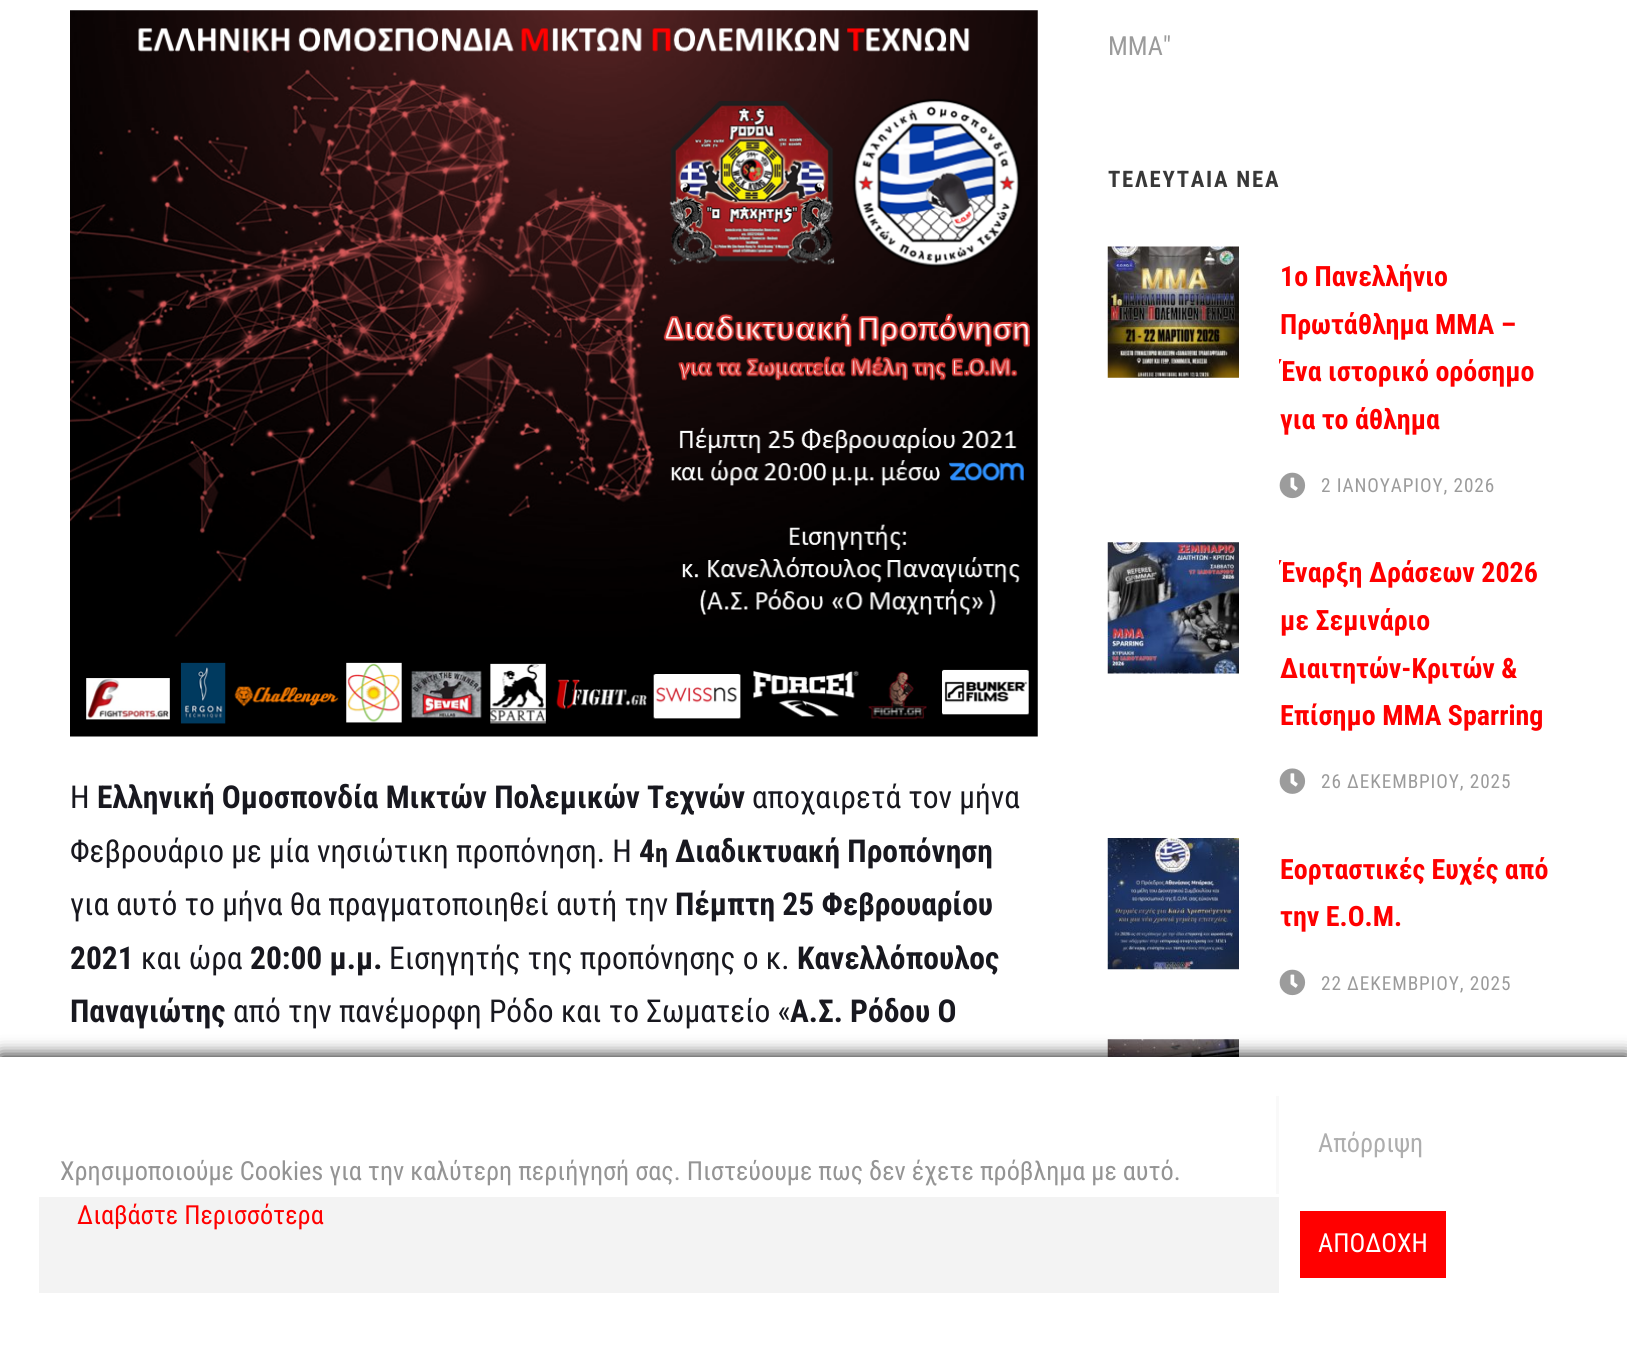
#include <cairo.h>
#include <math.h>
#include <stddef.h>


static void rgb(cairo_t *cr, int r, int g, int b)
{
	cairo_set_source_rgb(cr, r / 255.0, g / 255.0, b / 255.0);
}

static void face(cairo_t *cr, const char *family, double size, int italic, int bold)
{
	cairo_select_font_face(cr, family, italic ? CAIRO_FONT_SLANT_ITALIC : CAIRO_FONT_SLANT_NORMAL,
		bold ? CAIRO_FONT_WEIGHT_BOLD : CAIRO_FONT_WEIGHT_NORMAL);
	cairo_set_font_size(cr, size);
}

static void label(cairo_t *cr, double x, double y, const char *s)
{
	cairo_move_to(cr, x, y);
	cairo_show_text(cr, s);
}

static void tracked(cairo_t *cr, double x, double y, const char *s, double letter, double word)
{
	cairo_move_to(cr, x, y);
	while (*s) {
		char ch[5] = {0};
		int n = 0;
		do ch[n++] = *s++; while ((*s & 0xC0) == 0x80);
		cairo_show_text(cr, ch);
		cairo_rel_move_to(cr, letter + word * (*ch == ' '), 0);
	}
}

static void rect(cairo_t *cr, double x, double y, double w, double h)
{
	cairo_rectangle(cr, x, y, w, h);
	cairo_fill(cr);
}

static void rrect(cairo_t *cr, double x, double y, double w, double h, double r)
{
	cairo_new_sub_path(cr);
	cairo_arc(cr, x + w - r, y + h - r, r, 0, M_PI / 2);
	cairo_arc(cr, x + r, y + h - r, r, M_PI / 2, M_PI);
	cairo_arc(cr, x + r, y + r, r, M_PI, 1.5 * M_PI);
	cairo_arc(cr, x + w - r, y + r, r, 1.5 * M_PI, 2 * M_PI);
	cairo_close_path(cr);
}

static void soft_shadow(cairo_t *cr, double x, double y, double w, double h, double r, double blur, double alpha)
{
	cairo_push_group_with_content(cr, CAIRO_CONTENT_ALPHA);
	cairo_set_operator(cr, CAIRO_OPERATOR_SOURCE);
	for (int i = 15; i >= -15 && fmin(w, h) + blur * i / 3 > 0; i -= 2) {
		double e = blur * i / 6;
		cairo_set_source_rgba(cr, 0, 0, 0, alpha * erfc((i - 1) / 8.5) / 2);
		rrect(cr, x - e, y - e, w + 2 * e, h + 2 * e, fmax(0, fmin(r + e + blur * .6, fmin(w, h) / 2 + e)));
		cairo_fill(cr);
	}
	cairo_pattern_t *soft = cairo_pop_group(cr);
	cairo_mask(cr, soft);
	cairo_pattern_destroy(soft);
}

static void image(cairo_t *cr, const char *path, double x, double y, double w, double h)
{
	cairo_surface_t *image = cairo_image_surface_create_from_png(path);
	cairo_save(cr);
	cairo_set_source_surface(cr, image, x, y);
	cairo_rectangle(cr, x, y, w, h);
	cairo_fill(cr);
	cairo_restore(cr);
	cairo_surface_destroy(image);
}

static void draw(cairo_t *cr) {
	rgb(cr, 255, 255, 255);
	cairo_paint(cr);
	image(cr, "image0.png", 70, 10, 968, 727);
	face(cr, "Roboto Condensed", 31.5, 0, 0);
	rgb(cr, 24, 24, 31);
	label(cr, 70, 808, "Η");
	face(cr, "Roboto Condensed", 31.5, 0, 1);
	label(cr, 97, 808, "Ελληνική Ομοσπονδία Μικτών Πολεμικών Τεχνών");
	face(cr, "Roboto Condensed", 31.5, 0, 0);
	label(cr, 752, 808, "αποχαιρετά τον μήνα");
	label(cr, 70, 862, "Φεβρουάριο με μία νησιώτικη προπόνηση. Η");
	face(cr, "Roboto Condensed", 31.5, 0, 1);
	label(cr, 639, 862, "4");
	face(cr, "Roboto Condensed", 26.25, 0, 1);
	label(cr, 655, 862, "η");
	face(cr, "Roboto Condensed", 31.5, 0, 1);
	label(cr, 675, 862, "Διαδικτυακή Προπόνηση");
	face(cr, "Roboto Condensed", 31.5, 0, 0);
	label(cr, 70, 915, "για αυτό το μήνα θα πραγματοποιηθεί αυτή την");
	face(cr, "Roboto Condensed", 31.5, 0, 1);
	label(cr, 675, 915, "Πέμπτη 25 Φεβρουαρίου");
	label(cr, 70, 969, "2021");
	face(cr, "Roboto Condensed", 31.5, 0, 0);
	label(cr, 141, 969, "και ώρα");
	face(cr, "Roboto Condensed", 31.5, 0, 1);
	label(cr, 250, 969, "20:00 μ.μ.");
	face(cr, "Roboto Condensed", 31.5, 0, 0);
	label(cr, 389, 969, "Εισηγητής της προπόνησης ο κ.");
	face(cr, "Roboto Condensed", 31.5, 0, 1);
	label(cr, 797, 969, "Κανελλόπουλος");
	label(cr, 70, 1022, "Παναγιώτης");
	face(cr, "Roboto Condensed", 31.5, 0, 0);
	label(cr, 233, 1022, "από την πανέμορφη Ρόδο και το Σωματείο «");
	face(cr, "Roboto Condensed", 31.5, 0, 1);
	label(cr, 790, 1022, "Α.Σ. Ρόδου Ο");
	face(cr, "Roboto Condensed", 26.25, 0, 0);
	rgb(cr, 155, 155, 155);
	label(cr, 1108, 55, "ΜΜΑ\"");
	face(cr, "Roboto Condensed", 22.75, 0, 1);
	rgb(cr, 56, 56, 56);
	tracked(cr, 1108, 187, "ΤΕΛΕΥΤΑΙΑ ΝΕΑ", 1.75, 0);
	image(cr, "image1.png", 1107, 246, 132, 132);
	face(cr, "Roboto Condensed", 28, 0, 1);
	rgb(cr, 255, 0, 0);
	label(cr, 1280, 286, "1ο Πανελλήνιο");
	label(cr, 1280, 334, "Πρωτάθλημα MMA –");
	cairo_save(cr);
	cairo_rectangle(cr, 1279, 247, 279, 261);
	cairo_clip(cr);
	label(cr, 1280, 381, "Ένα ιστορικό ορόσημο");
	cairo_restore(cr);
	label(cr, 1280, 429, "για το άθλημα");
	image(cr, "image2.png", 1279, 472, 27, 27);
	face(cr, "Roboto Condensed", 19.25, 0, 0);
	rgb(cr, 155, 155, 155);
	tracked(cr, 1321, 492, "2 ΙΑΝΟΥΑΡΙΟΥ, 2026", 0.9, 0);
	image(cr, "image3.png", 1107, 542, 132, 132);
	cairo_save(cr);
	cairo_rectangle(cr, 1279, 543, 279, 260);
	cairo_clip(cr);
	face(cr, "Roboto Condensed", 28, 0, 1);
	rgb(cr, 255, 0, 0);
	label(cr, 1280, 582, "Έναρξη Δράσεων 2026");
	cairo_restore(cr);
	face(cr, "Roboto Condensed", 28, 0, 1);
	rgb(cr, 255, 0, 0);
	label(cr, 1280, 630, "με Σεμινάριο");
	label(cr, 1280, 678, "Διαιτητών-Κριτών &");
	label(cr, 1280, 725, "Επίσημο MMA Sparring");
	image(cr, "image4.png", 1279, 768, 27, 26);
	face(cr, "Roboto Condensed", 19.25, 0, 0);
	rgb(cr, 155, 155, 155);
	tracked(cr, 1321, 788, "26 ΔΕΚΕΜΒΡΙΟΥ, 2025", 0.9, 0);
	image(cr, "image5.png", 1107, 838, 132, 132);
	face(cr, "Roboto Condensed", 28, 0, 1);
	rgb(cr, 255, 0, 0);
	label(cr, 1280, 879, "Εορταστικές Ευχές από");
	label(cr, 1280, 926, "την Ε.Ο.Μ.");
	image(cr, "image2.png", 1279, 969, 27, 27);
	face(cr, "Roboto Condensed", 19.25, 0, 0);
	rgb(cr, 155, 155, 155);
	tracked(cr, 1321, 990, "22 ΔΕΚΕΜΒΡΙΟΥ, 2025", 0.9, 0);
	image(cr, "image6.png", 1107, 1039, 132, 18);
	rgb(cr, 0, 0, 0);
	soft_shadow(cr, 0, 1057, 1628, 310, 0, 9, 1);
	rgb(cr, 255, 255, 255);
	rect(cr, 0, 1057, 1627, 309);
	rgb(cr, 249, 249, 249);
	rect(cr, 1276, 1096, 3, 98);
	face(cr, "Roboto Condensed", 26.25, 0, 0);
	rgb(cr, 174, 174, 174);
	label(cr, 1318, 1152, "Απόρριψη");
	rgb(cr, 148, 148, 148);
	label(cr, 60, 1180, "Χρησιμοποιούμε Cookies για την καλύτερη περιήγησή σας. Πιστεύουμε πως δεν έχετε πρόβλημα με αυτό.");
	rgb(cr, 243, 243, 243);
	rect(cr, 39, 1197, 1240, 96);
	rgb(cr, 255, 0, 0);
	label(cr, 77, 1224, "Διαβάστε Περισσότερα");
	rect(cr, 1300, 1211, 146, 67);
	rgb(cr, 255, 255, 255);
	label(cr, 1318, 1252, "ΑΠΟΔΟΧΗ");
}

int main(void) {
	cairo_surface_t *surface = cairo_image_surface_create(CAIRO_FORMAT_RGB24, 1627, 1366);
	cairo_t *cr = cairo_create(surface);
	cairo_font_options_t *options = cairo_font_options_create();
	cairo_font_options_set_hint_metrics(options, CAIRO_HINT_METRICS_OFF);
	cairo_font_options_set_hint_style(options, CAIRO_HINT_STYLE_NONE);
	cairo_set_font_options(cr, options);
	cairo_set_miter_limit(cr, 4);
	draw(cr);
	cairo_surface_write_to_png(surface, "render.png");
	cairo_font_options_destroy(options);
	cairo_destroy(cr);
	cairo_surface_destroy(surface);
	return 0;
}
